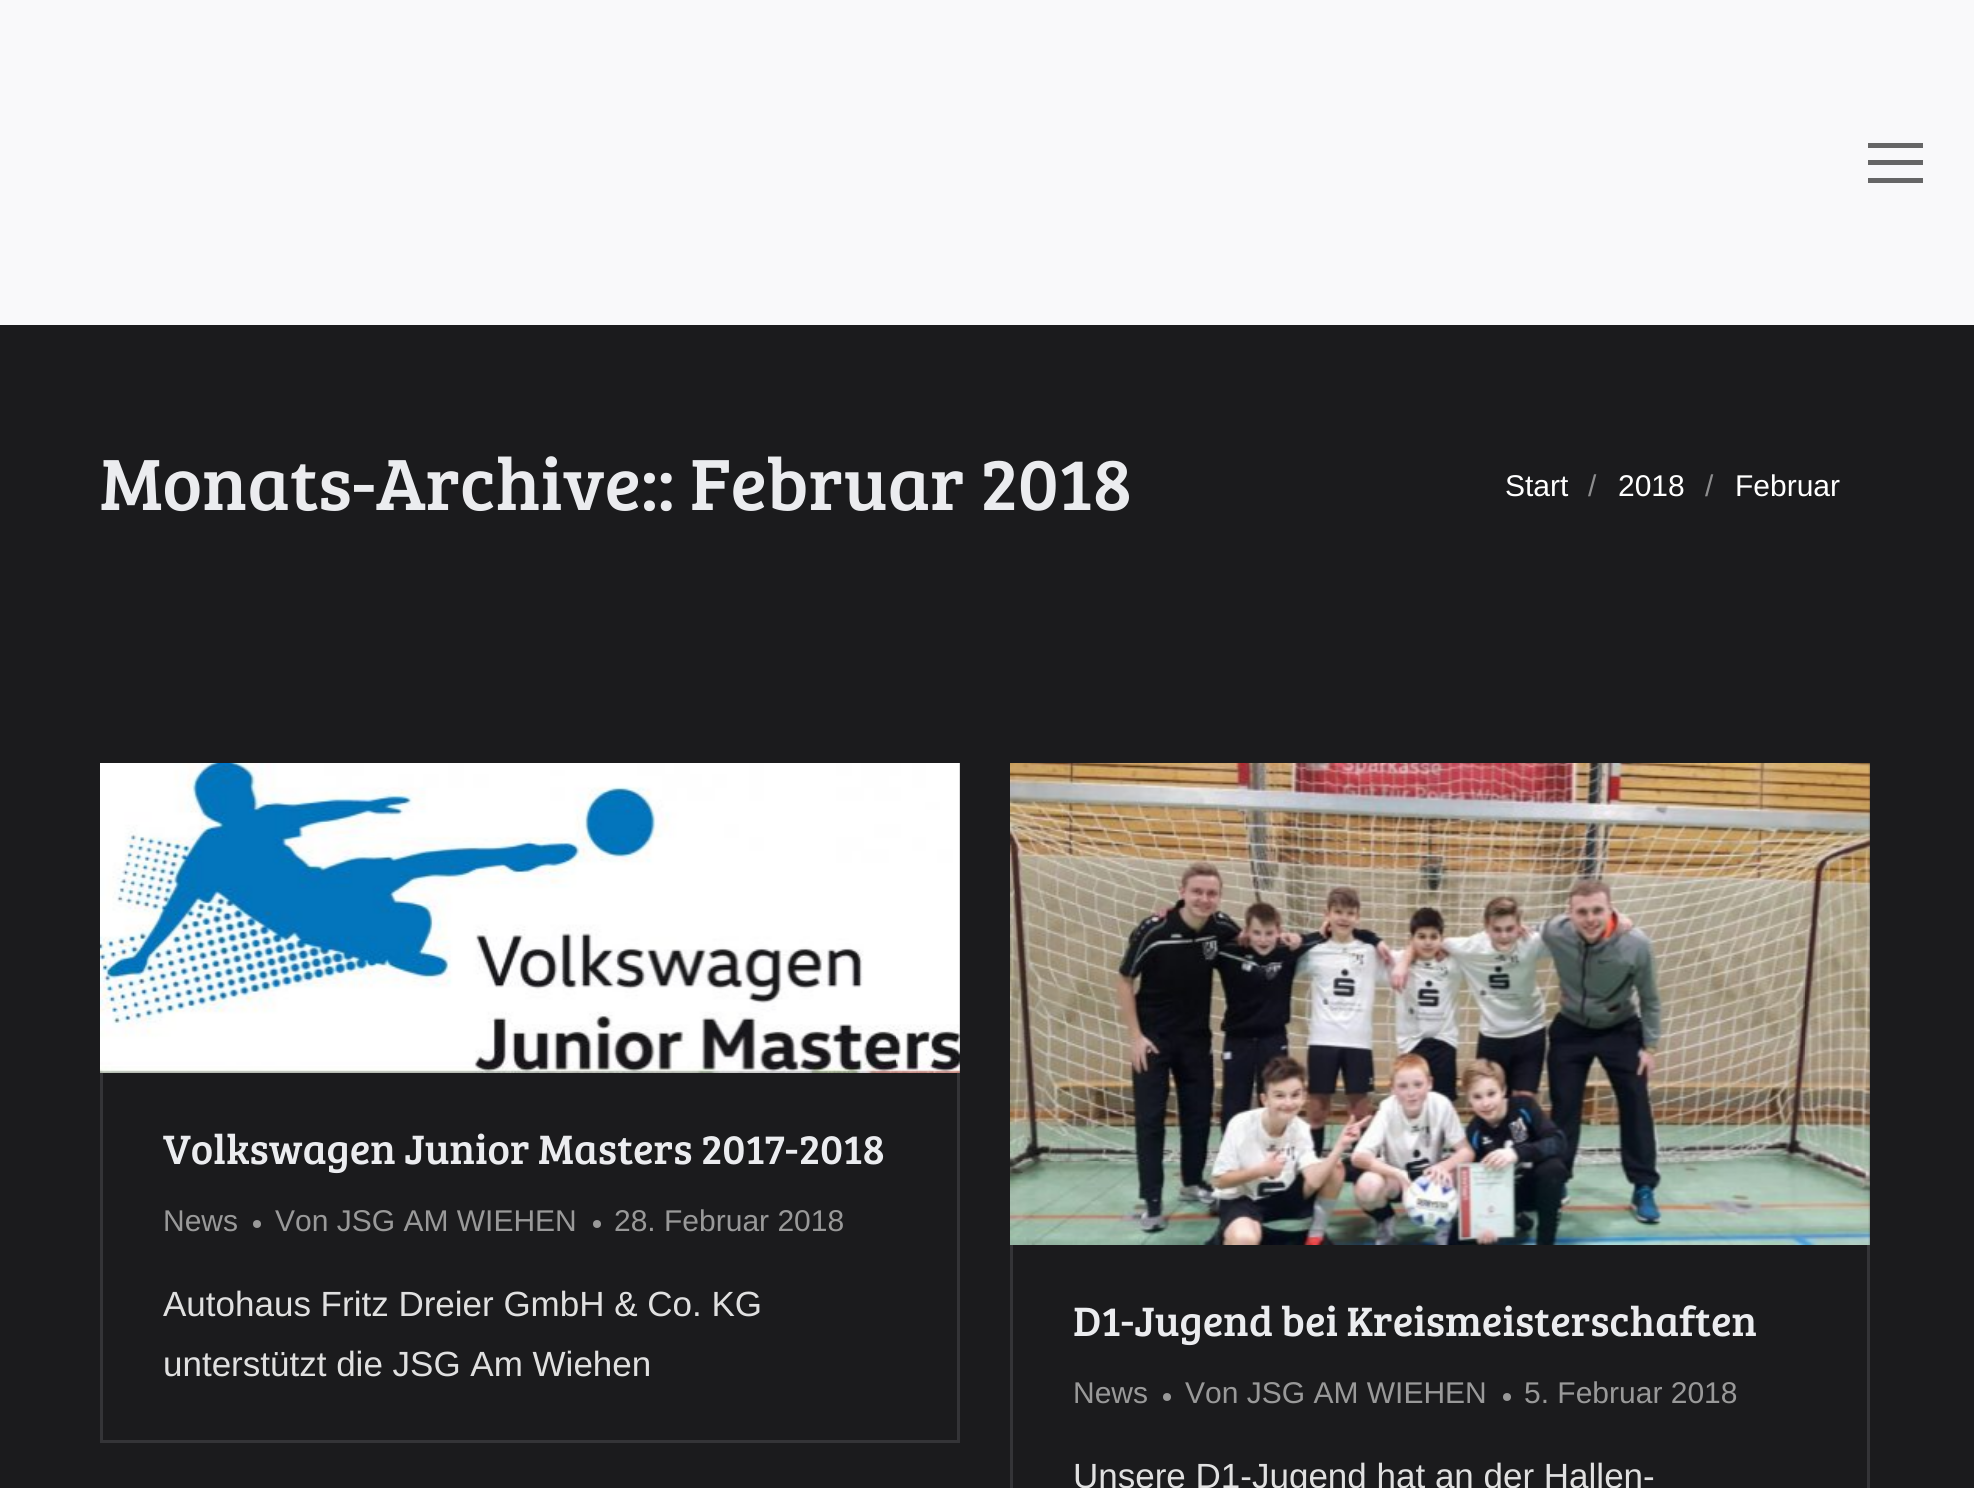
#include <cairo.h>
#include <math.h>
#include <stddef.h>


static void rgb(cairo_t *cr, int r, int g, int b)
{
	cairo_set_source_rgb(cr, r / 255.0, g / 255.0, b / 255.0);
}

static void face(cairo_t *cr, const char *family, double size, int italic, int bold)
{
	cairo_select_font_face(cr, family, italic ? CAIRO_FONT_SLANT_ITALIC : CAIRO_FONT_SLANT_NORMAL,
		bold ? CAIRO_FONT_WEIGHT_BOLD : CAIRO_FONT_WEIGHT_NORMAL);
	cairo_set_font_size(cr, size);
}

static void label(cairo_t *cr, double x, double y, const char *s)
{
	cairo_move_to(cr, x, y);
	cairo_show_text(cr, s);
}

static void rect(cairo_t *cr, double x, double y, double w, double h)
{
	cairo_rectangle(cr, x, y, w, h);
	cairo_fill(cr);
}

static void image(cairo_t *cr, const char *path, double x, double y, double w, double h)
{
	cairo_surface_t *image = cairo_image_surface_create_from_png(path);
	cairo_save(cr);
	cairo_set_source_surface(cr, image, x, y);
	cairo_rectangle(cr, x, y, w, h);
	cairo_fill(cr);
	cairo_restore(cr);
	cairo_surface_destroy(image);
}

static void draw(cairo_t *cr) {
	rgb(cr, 27, 27, 29);
	cairo_paint(cr);
	rgb(cr, 249, 249, 250);
	rect(cr, 0, 0, 1974, 325);
	rgb(cr, 102, 102, 102);
	rect(cr, 1868, 143, 55, 5);
	rect(cr, 1868, 160, 55, 5);
	rect(cr, 1868, 178, 55, 5);
	face(cr, "Bree Serif", 75, 0, 0);
	rgb(cr, 235, 236, 239);
	label(cr, 100, 510, "Monats-Archive:: Februar 2018");
	face(cr, "Liberation Sans", 30, 0, 0);
	rgb(cr, 255, 255, 255);
	label(cr, 1505, 496, "Start");
	rgb(cr, 141, 141, 142);
	label(cr, 1588, 496, "/");
	rgb(cr, 255, 255, 255);
	label(cr, 1618, 496, "2018");
	rgb(cr, 141, 141, 142);
	label(cr, 1705, 496, "/");
	rgb(cr, 255, 255, 255);
	label(cr, 1735, 496, "Februar");
	cairo_rectangle(cr, 101.5, 764.5, 857, 677);
	rgb(cr, 52, 52, 55);
	cairo_set_line_width(cr, 3);
	cairo_stroke(cr);
	image(cr, "image0.png", 100, 763, 860, 310);
	face(cr, "Bree Serif", 42.5, 0, 0);
	rgb(cr, 235, 236, 239);
	label(cr, 163, 1164, "Volkswagen Junior Masters 2017-2018");
	face(cr, "Liberation Sans", 30, 0, 0);
	rgb(cr, 153, 153, 153);
	label(cr, 163, 1231, "News");
	cairo_new_path(cr);
	cairo_arc(cr, 257, 1224, 4, 0, 2 * M_PI);
	cairo_fill(cr);
	label(cr, 275, 1231, "Von JSG AM WIEHEN");
	cairo_new_path(cr);
	cairo_arc(cr, 597, 1224, 4, 0, 2 * M_PI);
	cairo_fill(cr);
	label(cr, 614, 1231, "28. Februar 2018");
	face(cr, "Liberation Sans", 35, 0, 0);
	rgb(cr, 224, 224, 224);
	label(cr, 163, 1316, "Autohaus Fritz Dreier GmbH & Co. KG");
	label(cr, 163, 1376, "unterstützt die JSG Am Wiehen");
	cairo_rectangle(cr, 1011.5, 764.5, 857, 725);
	rgb(cr, 52, 52, 55);
	cairo_stroke(cr);
	image(cr, "image1.png", 1010, 763, 860, 482);
	face(cr, "Bree Serif", 42.5, 0, 0);
	rgb(cr, 235, 236, 239);
	label(cr, 1073, 1336, "D1-Jugend bei Kreismeisterschaften");
	face(cr, "Liberation Sans", 30, 0, 0);
	rgb(cr, 153, 153, 153);
	label(cr, 1073, 1403, "News");
	cairo_new_path(cr);
	cairo_arc(cr, 1167, 1397, 4, 0, 2 * M_PI);
	cairo_fill(cr);
	label(cr, 1185, 1403, "Von JSG AM WIEHEN");
	cairo_new_path(cr);
	cairo_arc(cr, 1507, 1397, 4, 0, 2 * M_PI);
	cairo_fill(cr);
	label(cr, 1524, 1403, "5. Februar 2018");
	face(cr, "Liberation Sans", 35, 0, 0);
	rgb(cr, 224, 224, 224);
	label(cr, 1073, 1488, "Unsere D1-Jugend hat an der Hallen-");
}

int main(void) {
	cairo_surface_t *surface = cairo_image_surface_create(CAIRO_FORMAT_RGB24, 1974, 1488);
	cairo_t *cr = cairo_create(surface);
	cairo_font_options_t *options = cairo_font_options_create();
	cairo_font_options_set_hint_metrics(options, CAIRO_HINT_METRICS_OFF);
	cairo_font_options_set_hint_style(options, CAIRO_HINT_STYLE_NONE);
	cairo_set_font_options(cr, options);
	cairo_set_miter_limit(cr, 4);
	draw(cr);
	cairo_surface_write_to_png(surface, "render.png");
	cairo_font_options_destroy(options);
	cairo_destroy(cr);
	cairo_surface_destroy(surface);
	return 0;
}
